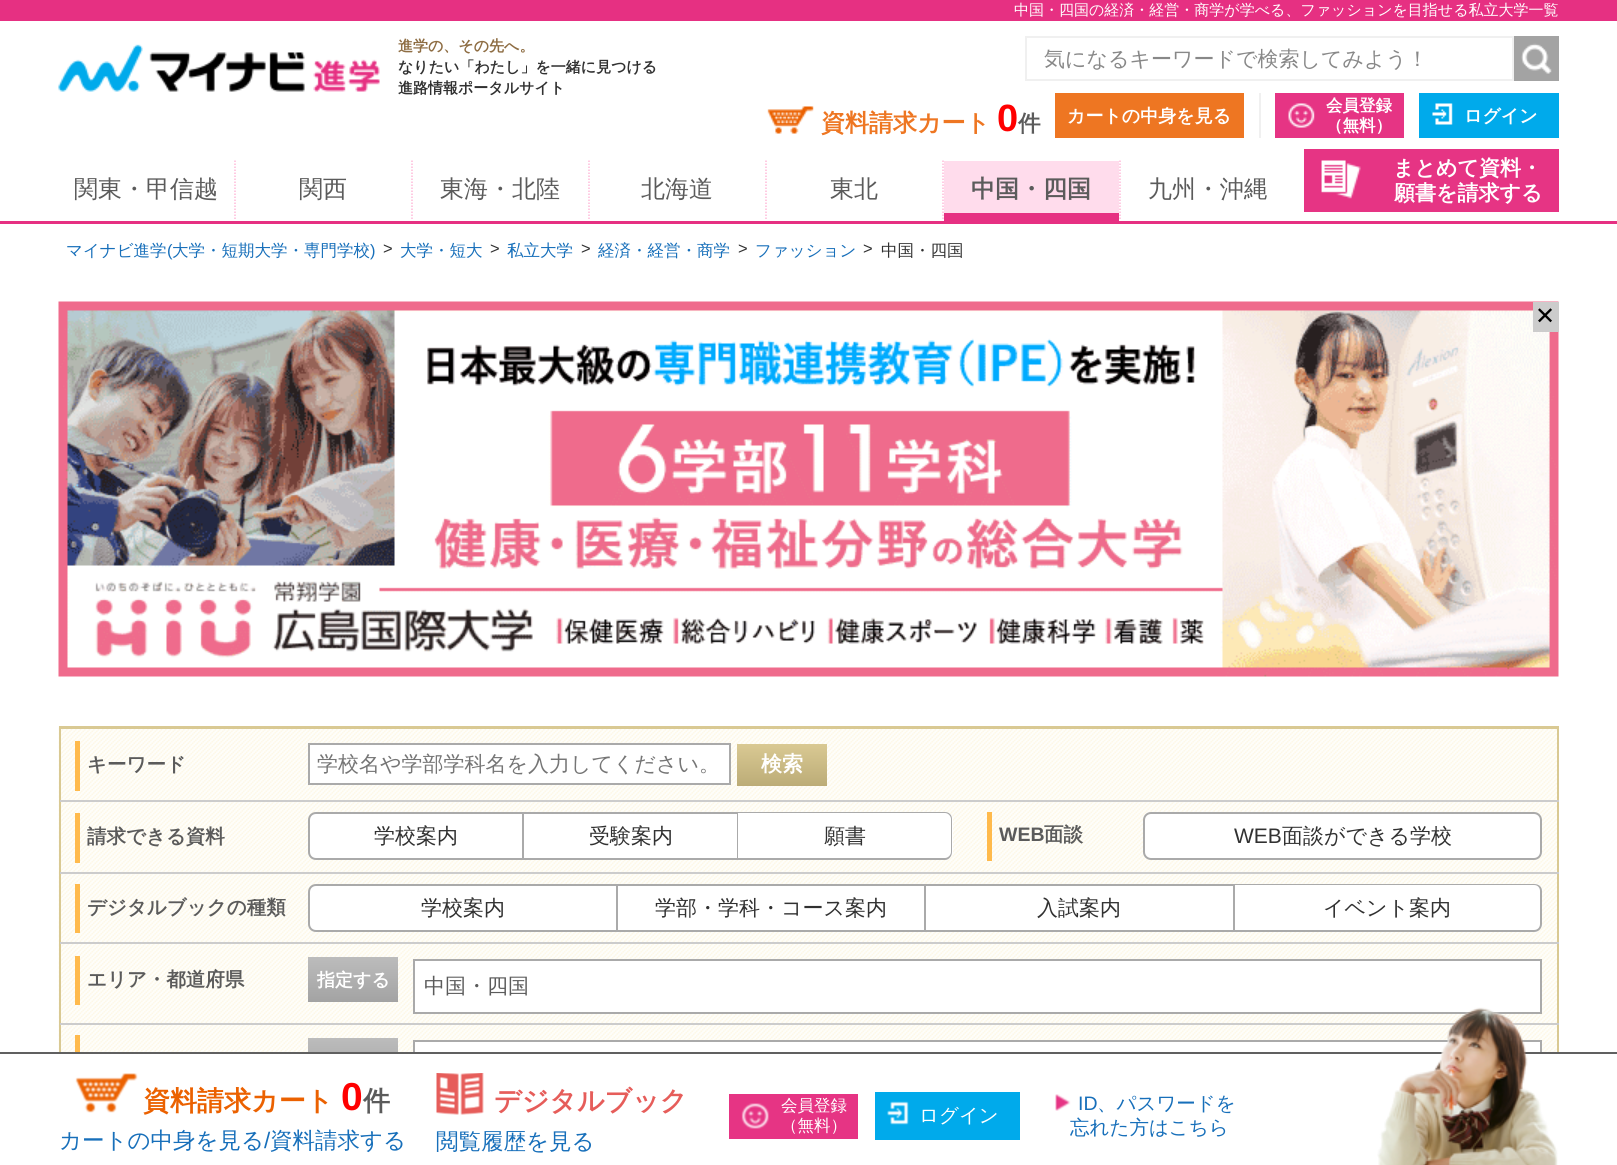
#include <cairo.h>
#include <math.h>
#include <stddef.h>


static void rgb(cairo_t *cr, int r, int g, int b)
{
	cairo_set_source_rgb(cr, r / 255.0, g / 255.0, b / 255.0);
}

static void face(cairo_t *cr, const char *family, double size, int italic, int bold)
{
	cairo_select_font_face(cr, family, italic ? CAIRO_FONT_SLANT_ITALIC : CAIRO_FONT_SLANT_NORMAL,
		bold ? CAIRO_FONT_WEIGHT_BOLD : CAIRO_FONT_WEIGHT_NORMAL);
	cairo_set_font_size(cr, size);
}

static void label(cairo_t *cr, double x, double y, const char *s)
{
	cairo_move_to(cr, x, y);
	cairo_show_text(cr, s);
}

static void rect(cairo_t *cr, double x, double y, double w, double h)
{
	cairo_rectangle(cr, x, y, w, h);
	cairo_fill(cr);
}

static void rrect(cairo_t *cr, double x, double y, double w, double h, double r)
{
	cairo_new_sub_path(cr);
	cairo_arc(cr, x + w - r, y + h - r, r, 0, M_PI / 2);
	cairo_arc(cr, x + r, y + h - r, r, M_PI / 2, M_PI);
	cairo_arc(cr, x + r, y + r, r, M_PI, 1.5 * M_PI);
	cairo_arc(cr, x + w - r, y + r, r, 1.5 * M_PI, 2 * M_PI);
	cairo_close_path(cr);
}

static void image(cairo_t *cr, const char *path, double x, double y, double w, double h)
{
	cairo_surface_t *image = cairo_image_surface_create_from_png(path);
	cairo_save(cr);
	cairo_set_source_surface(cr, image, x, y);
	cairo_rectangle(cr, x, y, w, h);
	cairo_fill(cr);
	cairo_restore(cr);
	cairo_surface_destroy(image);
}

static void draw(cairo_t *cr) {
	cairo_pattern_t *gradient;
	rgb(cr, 255, 255, 255);
	cairo_paint(cr);
	rgb(cr, 230, 48, 130);
	rect(cr, 0, 0, 1617, 21);
	face(cr, "WenQuanYi Zen Hei Medium", 15, 0, 0);
	rgb(cr, 255, 255, 255);
	label(cr, 1014, 15, "中国・四国の経済・経営・商学が学べる、ファッションを目指せる私立大学一覧");
	image(cr, "image0.png", 58, 44, 322, 48);
	face(cr, "WenQuanYi Zen Hei", 15, 0, 1);
	rgb(cr, 142, 109, 67);
	label(cr, 398, 51, "進学の、その先へ。");
	rgb(cr, 49, 49, 49);
	label(cr, 398, 72, "なりたい「わたし」を一緒に見つける");
	label(cr, 398, 93, "進路情報ポータルサイト");
	cairo_rectangle(cr, 1026, 37, 487, 43);
	rgb(cr, 240, 240, 240);
	cairo_stroke(cr);
	face(cr, "WenQuanYi Zen Hei Medium", 21, 0, 0);
	rgb(cr, 136, 136, 136);
	label(cr, 1044, 66, "気になるキーワードで検索してみよう！");
	rgb(cr, 163, 163, 163);
	rect(cr, 1514, 36, 45, 45);
	image(cr, "image1.png", 1521, 43, 31, 31);
	image(cr, "image2.png", 767, 106, 47, 28);
	face(cr, "WenQuanYi Zen Hei", 24, 0, 1);
	rgb(cr, 238, 118, 34);
	label(cr, 821, 131, "資料請求カート");
	face(cr, "Liberation Sans", 38, 0, 1);
	rgb(cr, 255, 0, 0);
	label(cr, 997, 131, "0");
	face(cr, "WenQuanYi Zen Hei", 22.5, 0, 1);
	rgb(cr, 91, 91, 91);
	label(cr, 1018, 131, "件");
	rgb(cr, 238, 118, 34);
	rect(cr, 1055, 93, 189, 45);
	face(cr, "WenQuanYi Zen Hei", 18, 0, 1);
	rgb(cr, 255, 255, 255);
	label(cr, 1067, 122, "カートの中身を見る");
	rgb(cr, 240, 240, 240);
	rect(cr, 1259, 93, 2, 45);
	rgb(cr, 230, 52, 132);
	rect(cr, 1275, 93, 129, 45);
	image(cr, "image3.png", 1288, 103, 27, 25);
	face(cr, "WenQuanYi Zen Hei", 16.5, 0, 1);
	rgb(cr, 255, 255, 255);
	label(cr, 1326, 111, "会員登録");
	label(cr, 1326, 131, "（無料）");
	rgb(cr, 0, 170, 235);
	rect(cr, 1419, 93, 140, 45);
	image(cr, "image4.png", 1432, 103, 21, 22);
	face(cr, "WenQuanYi Zen Hei", 18, 0, 1);
	rgb(cr, 255, 255, 255);
	label(cr, 1464, 122, "ログイン");
	rgb(cr, 230, 52, 132);
	rect(cr, 1304, 149, 255, 63);
	image(cr, "image5.png", 1321, 160, 40, 39);
	face(cr, "WenQuanYi Zen Hei", 21, 0, 1);
	rgb(cr, 255, 255, 255);
	label(cr, 1393, 175, "まとめて資料・");
	label(cr, 1394, 200, "願書を請求する");
	rgb(cr, 230, 48, 130);
	rect(cr, 0, 221, 1617, 3);
	face(cr, "WenQuanYi Zen Hei Medium", 24, 0, 0);
	rgb(cr, 91, 91, 91);
	label(cr, 74, 197, "関東・甲信越");
	cairo_new_path(cr);
	cairo_move_to(cr, 235, 160.5);
	cairo_line_to(cr, 235, 220.5);
	rgb(cr, 255, 186, 217);
	cairo_set_line_width(cr, 1.5);
	cairo_set_dash(cr, (double[]){1.5, 1.5}, 2, 0);
	cairo_stroke(cr);
	rgb(cr, 91, 91, 91);
	label(cr, 299, 197, "関西");
	cairo_new_path(cr);
	cairo_move_to(cr, 412, 160.5);
	cairo_line_to(cr, 412, 220.5);
	rgb(cr, 255, 186, 217);
	cairo_stroke(cr);
	rgb(cr, 91, 91, 91);
	label(cr, 440, 197, "東海・北陸");
	cairo_new_path(cr);
	cairo_move_to(cr, 589, 160.5);
	cairo_line_to(cr, 589, 220.5);
	rgb(cr, 255, 186, 217);
	cairo_stroke(cr);
	rgb(cr, 91, 91, 91);
	label(cr, 641, 197, "北海道");
	cairo_new_path(cr);
	cairo_move_to(cr, 766, 160.5);
	cairo_line_to(cr, 766, 220.5);
	rgb(cr, 255, 186, 217);
	cairo_stroke(cr);
	rgb(cr, 91, 91, 91);
	label(cr, 830, 197, "東北");
	cairo_new_path(cr);
	cairo_move_to(cr, 943, 160.5);
	cairo_line_to(cr, 943, 220.5);
	rgb(cr, 255, 186, 217);
	cairo_stroke(cr);
	rgb(cr, 255, 220, 236);
	rect(cr, 944, 161, 175, 52);
	face(cr, "WenQuanYi Zen Hei", 24, 0, 1);
	rgb(cr, 91, 91, 91);
	label(cr, 971, 197, "中国・四国");
	rgb(cr, 230, 48, 130);
	rect(cr, 944, 213, 175, 8);
	cairo_new_path(cr);
	cairo_move_to(cr, 1120, 160.5);
	cairo_line_to(cr, 1120, 220.5);
	rgb(cr, 255, 186, 217);
	cairo_stroke(cr);
	face(cr, "WenQuanYi Zen Hei Medium", 24, 0, 0);
	rgb(cr, 91, 91, 91);
	label(cr, 1148, 197, "九州・沖縄");
	face(cr, "WenQuanYi Zen Hei Medium", 16.5, 0, 0);
	rgb(cr, 23, 111, 186);
	label(cr, 66, 256, "マイナビ進学");
	face(cr, "Liberation Sans", 16.5, 0, 0);
	label(cr, 167, 256, "(");
	face(cr, "WenQuanYi Zen Hei Medium", 16.5, 0, 0);
	label(cr, 172, 256, "大学・短期大学・専門学校");
	face(cr, "Liberation Sans", 16.5, 0, 0);
	label(cr, 370, 256, ")");
	rgb(cr, 49, 49, 49);
	label(cr, 383, 254, ">");
	face(cr, "WenQuanYi Zen Hei Medium", 16.5, 0, 0);
	rgb(cr, 23, 111, 186);
	label(cr, 400, 256, "大学・短大");
	face(cr, "Liberation Sans", 16.5, 0, 0);
	rgb(cr, 49, 49, 49);
	label(cr, 490, 254, ">");
	face(cr, "WenQuanYi Zen Hei Medium", 16.5, 0, 0);
	rgb(cr, 23, 111, 186);
	label(cr, 507, 256, "私立大学");
	face(cr, "Liberation Sans", 16.5, 0, 0);
	rgb(cr, 49, 49, 49);
	label(cr, 581, 254, ">");
	face(cr, "WenQuanYi Zen Hei Medium", 16.5, 0, 0);
	rgb(cr, 23, 111, 186);
	label(cr, 598, 256, "経済・経営・商学");
	face(cr, "Liberation Sans", 16.5, 0, 0);
	rgb(cr, 49, 49, 49);
	label(cr, 738, 254, ">");
	face(cr, "WenQuanYi Zen Hei Medium", 16.5, 0, 0);
	rgb(cr, 23, 111, 186);
	label(cr, 755, 256, "ファッション");
	face(cr, "Liberation Sans", 16.5, 0, 0);
	rgb(cr, 49, 49, 49);
	label(cr, 863, 254, ">");
	face(cr, "WenQuanYi Zen Hei Medium", 16.5, 0, 0);
	label(cr, 881, 256, "中国・四国");
	image(cr, "image6.png", 58, 301, 1501, 376);
	rgb(cr, 204, 204, 204);
	rect(cr, 1533, 302, 26, 30);
	face(cr, "DejaVu Sans", 24, 0, 0);
	rgb(cr, 0, 0, 0);
	label(cr, 1535, 324, "✕");
	image(cr, "image7.png", 58, 726, 1499, 326);
	rgb(cr, 217, 201, 147);
	rect(cr, 59, 726, 1500, 3);
	rect(cr, 1557, 726, 2, 326);
	rect(cr, 59, 726, 2, 326);
	rgb(cr, 255, 186, 76);
	rect(cr, 75, 741, 5, 50);
	face(cr, "WenQuanYi Zen Hei", 19.5, 0, 1);
	rgb(cr, 91, 91, 91);
	label(cr, 87, 771, "キーワード");
	rgb(cr, 255, 255, 255);
	cairo_rectangle(cr, 309, 744, 421, 40);
	cairo_fill_preserve(cr);
	rgb(cr, 170, 170, 170);
	cairo_set_line_width(cr, 2);
	cairo_set_dash(cr, NULL, 0, 0);
	cairo_stroke(cr);
	face(cr, "WenQuanYi Zen Hei Medium", 21, 0, 0);
	rgb(cr, 117, 117, 117);
	label(cr, 317, 771, "学校名や学部学科名を入力してください。");
	gradient = cairo_pattern_create_linear(782, 744, 782, 786);
	cairo_pattern_add_color_stop_rgba(gradient, 0, 0.851, 0.788, 0.576, 1);
	cairo_pattern_add_color_stop_rgba(gradient, 1, 0.737, 0.675, 0.467, 1);
	cairo_set_source(cr, gradient);
	cairo_pattern_destroy(gradient);
	rect(cr, 737, 744, 90, 42);
	face(cr, "WenQuanYi Zen Hei", 21, 0, 1);
	rgb(cr, 255, 255, 255);
	label(cr, 761, 771, "検索");
	rgb(cr, 255, 186, 76);
	rect(cr, 75, 813, 5, 50);
	face(cr, "WenQuanYi Zen Hei", 19.5, 0, 1);
	rgb(cr, 91, 91, 91);
	label(cr, 87, 843, "請求できる資料");
	rgb(cr, 204, 204, 204);
	rect(cr, 60, 800, 1499, 2);
	rgb(cr, 255, 255, 255);
	cairo_new_path(cr);
	cairo_move_to(cr, 316, 813);
	cairo_line_to(cr, 523, 813);
	cairo_line_to(cr, 523, 859);
	cairo_line_to(cr, 316, 859);
	cairo_curve_to(cr, 312, 859, 309, 856, 309, 852);
	cairo_line_to(cr, 309, 820);
	cairo_curve_to(cr, 309, 816, 312, 813, 316, 813);
	cairo_close_path(cr);
	cairo_fill_preserve(cr);
	rgb(cr, 170, 170, 170);
	cairo_stroke(cr);
	face(cr, "WenQuanYi Zen Hei Medium", 21, 0, 0);
	rgb(cr, 49, 49, 49);
	label(cr, 374, 843, "学校案内");
	rgb(cr, 255, 255, 255);
	rect(cr, 524, 814, 213, 44);
	rgb(cr, 170, 170, 170);
	rect(cr, 524, 812, 214, 2);
	rect(cr, 737, 812, 1, 48);
	rect(cr, 524, 858, 214, 2);
	rgb(cr, 49, 49, 49);
	label(cr, 589, 843, "受験案内");
	rgb(cr, 255, 255, 255);
	cairo_new_path(cr);
	cairo_move_to(cr, 738, 812);
	cairo_line_to(cr, 945, 812);
	cairo_curve_to(cr, 949.5, 812, 953, 815.5, 953, 820);
	cairo_line_to(cr, 953, 852);
	cairo_curve_to(cr, 953, 856.5, 949.5, 860, 945, 860);
	cairo_line_to(cr, 738, 860);
	cairo_close_path(cr);
	cairo_fill(cr);
	rgb(cr, 170, 170, 170);
	cairo_set_fill_rule(cr, CAIRO_FILL_RULE_EVEN_ODD);
	cairo_new_path(cr);
	cairo_move_to(cr, 738, 812);
	cairo_line_to(cr, 945, 812);
	cairo_curve_to(cr, 949, 812, 952, 815, 952, 819);
	cairo_line_to(cr, 952, 852);
	cairo_curve_to(cr, 952, 856, 949, 860, 945, 860);
	cairo_line_to(cr, 738, 860);
	cairo_close_path(cr);
	cairo_move_to(cr, 738, 813);
	cairo_line_to(cr, 945, 813);
	cairo_curve_to(cr, 948, 813, 951, 816, 951, 819);
	cairo_line_to(cr, 951, 852);
	cairo_curve_to(cr, 951, 855, 948, 858, 945, 858);
	cairo_line_to(cr, 738, 858);
	cairo_close_path(cr);
	cairo_fill(cr);
	rgb(cr, 49, 49, 49);
	label(cr, 824, 843, "願書");
	rgb(cr, 255, 186, 76);
	rect(cr, 987, 812, 5, 49);
	face(cr, "Liberation Sans", 19.5, 0, 1);
	rgb(cr, 91, 91, 91);
	label(cr, 999, 841, "WEB");
	face(cr, "WenQuanYi Zen Hei", 19.5, 0, 1);
	label(cr, 1044, 841, "面談");
	rgb(cr, 255, 255, 255);
	rrect(cr, 1144, 813, 397, 46, 7);
	cairo_fill_preserve(cr);
	rgb(cr, 170, 170, 170);
	cairo_stroke(cr);
	face(cr, "Liberation Sans", 21, 0, 0);
	rgb(cr, 49, 49, 49);
	label(cr, 1234, 843, "WEB");
	face(cr, "WenQuanYi Zen Hei Medium", 21, 0, 0);
	label(cr, 1282, 843, "面談ができる学校");
	rgb(cr, 255, 186, 76);
	rect(cr, 75, 884, 5, 49);
	face(cr, "WenQuanYi Zen Hei", 19.5, 0, 1);
	rgb(cr, 91, 91, 91);
	label(cr, 87, 914, "デジタルブックの種類");
	rgb(cr, 204, 204, 204);
	rect(cr, 60, 872, 1499, 2);
	rgb(cr, 255, 255, 255);
	cairo_new_path(cr);
	cairo_move_to(cr, 316, 885);
	cairo_line_to(cr, 617, 885);
	cairo_line_to(cr, 617, 931);
	cairo_line_to(cr, 316, 931);
	cairo_curve_to(cr, 312, 931, 309, 928, 309, 924);
	cairo_line_to(cr, 309, 892);
	cairo_curve_to(cr, 309, 888, 312, 885, 316, 885);
	cairo_close_path(cr);
	cairo_fill_preserve(cr);
	rgb(cr, 170, 170, 170);
	cairo_stroke(cr);
	face(cr, "WenQuanYi Zen Hei Medium", 21, 0, 0);
	rgb(cr, 49, 49, 49);
	label(cr, 421, 915, "学校案内");
	rgb(cr, 255, 255, 255);
	rect(cr, 618, 886, 306, 44);
	rgb(cr, 170, 170, 170);
	rect(cr, 618, 884, 617, 2);
	rect(cr, 924, 884, 2, 48);
	rect(cr, 618, 930, 308, 2);
	rgb(cr, 49, 49, 49);
	label(cr, 655, 915, "学部・学科・コース案内");
	rgb(cr, 255, 255, 255);
	rect(cr, 926, 886, 307, 44);
	rgb(cr, 170, 170, 170);
	rect(cr, 1233, 884, 2, 48);
	rect(cr, 926, 930, 309, 2);
	rgb(cr, 49, 49, 49);
	label(cr, 1037, 915, "入試案内");
	rgb(cr, 255, 255, 255);
	cairo_new_path(cr);
	cairo_move_to(cr, 1235, 884);
	cairo_line_to(cr, 1534, 884);
	cairo_curve_to(cr, 1538.5, 884, 1542, 887.5, 1542, 892);
	cairo_line_to(cr, 1542, 924);
	cairo_curve_to(cr, 1542, 928.5, 1538.5, 932, 1534, 932);
	cairo_line_to(cr, 1235, 932);
	cairo_close_path(cr);
	cairo_fill(cr);
	rgb(cr, 170, 170, 170);
	cairo_new_path(cr);
	cairo_move_to(cr, 1234, 884);
	cairo_line_to(cr, 1534, 884);
	cairo_curve_to(cr, 1539, 884, 1542, 887, 1542, 891);
	cairo_line_to(cr, 1542, 924);
	cairo_curve_to(cr, 1542, 928, 1539, 932, 1534, 932);
	cairo_line_to(cr, 1234, 932);
	cairo_close_path(cr);
	cairo_move_to(cr, 1234, 885);
	cairo_line_to(cr, 1534, 885);
	cairo_curve_to(cr, 1538, 885, 1540, 888, 1540, 891);
	cairo_line_to(cr, 1540, 924);
	cairo_curve_to(cr, 1540, 927, 1538, 930, 1534, 930);
	cairo_line_to(cr, 1234, 930);
	cairo_close_path(cr);
	cairo_fill(cr);
	rgb(cr, 49, 49, 49);
	label(cr, 1323, 915, "イベント案内");
	rgb(cr, 255, 186, 76);
	rect(cr, 75, 956, 5, 49);
	face(cr, "WenQuanYi Zen Hei", 19.5, 0, 1);
	rgb(cr, 91, 91, 91);
	label(cr, 87, 986, "エリア・都道府県");
	rgb(cr, 204, 204, 204);
	rect(cr, 60, 942, 1499, 2);
	gradient = cairo_pattern_create_linear(353, 957, 353, 1002);
	cairo_pattern_add_color_stop_rgba(gradient, 0, 0.737, 0.737, 0.737, 1);
	cairo_pattern_add_color_stop_rgba(gradient, 1, 0.639, 0.639, 0.639, 1);
	cairo_set_source(cr, gradient);
	cairo_pattern_destroy(gradient);
	rect(cr, 308, 957, 90, 45);
	face(cr, "WenQuanYi Zen Hei", 18, 0, 1);
	rgb(cr, 255, 255, 255);
	label(cr, 317, 986, "指定する");
	cairo_rectangle(cr, 414, 960, 1127, 53);
	cairo_fill_preserve(cr);
	rgb(cr, 170, 170, 170);
	cairo_stroke(cr);
	face(cr, "WenQuanYi Zen Hei Medium", 21, 0, 0);
	rgb(cr, 91, 91, 91);
	label(cr, 424, 993, "中国・四国");
	rgb(cr, 204, 204, 204);
	rect(cr, 60, 1023, 1499, 2);
	gradient = cairo_pattern_create_linear(353, 1038, 353, 1083);
	cairo_pattern_add_color_stop_rgba(gradient, 0, 0.737, 0.737, 0.737, 1);
	cairo_pattern_add_color_stop_rgba(gradient, 1, 0.639, 0.639, 0.639, 1);
	cairo_set_source(cr, gradient);
	cairo_pattern_destroy(gradient);
	rect(cr, 308, 1038, 90, 14);
	rgb(cr, 255, 255, 255);
	rect(cr, 415, 1042, 1125, 10);
	cairo_rectangle(cr, 414, 1041, 1127, 52);
	rgb(cr, 170, 170, 170);
	cairo_stroke(cr);
	rgb(cr, 255, 186, 76);
	rect(cr, 75, 1035, 5, 17);
	rgb(cr, 255, 255, 255);
	rect(cr, 413, 1054, 1129, 40);
	rgb(cr, 96, 96, 96);
	rect(cr, 0, 1052, 1617, 2);
	image(cr, "image8.png", 75, 1073, 63, 40);
	face(cr, "WenQuanYi Zen Hei", 27, 0, 1);
	rgb(cr, 235, 97, 0);
	label(cr, 143, 1110, "資料請求カート");
	face(cr, "Liberation Sans", 39, 0, 1);
	rgb(cr, 255, 0, 0);
	label(cr, 341, 1110, "0");
	face(cr, "WenQuanYi Zen Hei", 27, 0, 1);
	rgb(cr, 91, 91, 91);
	label(cr, 363, 1110, "件");
	face(cr, "WenQuanYi Zen Hei Medium", 22.5, 0, 0);
	rgb(cr, 23, 111, 186);
	label(cr, 59, 1148, "カートの中身を見る");
	face(cr, "Liberation Sans", 22.5, 0, 0);
	label(cr, 264, 1148, "/");
	face(cr, "WenQuanYi Zen Hei Medium", 22.5, 0, 0);
	label(cr, 270, 1148, "資料請求する");
	image(cr, "image9.png", 436, 1073, 48, 42);
	face(cr, "WenQuanYi Zen Hei", 27, 0, 1);
	rgb(cr, 230, 93, 90);
	label(cr, 494, 1110, "デジタルブック");
	face(cr, "WenQuanYi Zen Hei Medium", 22.5, 0, 0);
	rgb(cr, 23, 111, 186);
	label(cr, 436, 1149, "閲覧履歴を見る");
	rgb(cr, 230, 52, 132);
	rect(cr, 729, 1094, 129, 45);
	image(cr, "image10.png", 741, 1103, 28, 26);
	face(cr, "WenQuanYi Zen Hei Medium", 16.5, 0, 0);
	rgb(cr, 255, 255, 255);
	label(cr, 781, 1111, "会員登録");
	label(cr, 781, 1131, "（無料）");
	rgb(cr, 0, 170, 235);
	rect(cr, 875, 1092, 145, 48);
	image(cr, "image11.png", 887, 1101, 22, 24);
	face(cr, "WenQuanYi Zen Hei Medium", 19.5, 0, 0);
	rgb(cr, 255, 255, 255);
	label(cr, 919, 1122, "ログイン");
	image(cr, "image12.png", 1055, 1094, 16, 17);
	face(cr, "Liberation Sans", 19.5, 0, 0);
	rgb(cr, 23, 111, 186);
	label(cr, 1078, 1110, "ID");
	face(cr, "WenQuanYi Zen Hei Medium", 19.5, 0, 0);
	label(cr, 1097, 1110, "、パスワードを");
	label(cr, 1070, 1134, "忘れた方はこちら");
	image(cr, "image13.png", 1377, 1007, 181, 158);
}

int main(void) {
	cairo_surface_t *surface = cairo_image_surface_create(CAIRO_FORMAT_RGB24, 1617, 1165);
	cairo_t *cr = cairo_create(surface);
	cairo_font_options_t *options = cairo_font_options_create();
	cairo_font_options_set_hint_metrics(options, CAIRO_HINT_METRICS_OFF);
	cairo_font_options_set_hint_style(options, CAIRO_HINT_STYLE_NONE);
	cairo_set_font_options(cr, options);
	cairo_set_miter_limit(cr, 4);
	draw(cr);
	cairo_surface_write_to_png(surface, "render.png");
	cairo_font_options_destroy(options);
	cairo_destroy(cr);
	cairo_surface_destroy(surface);
	return 0;
}
